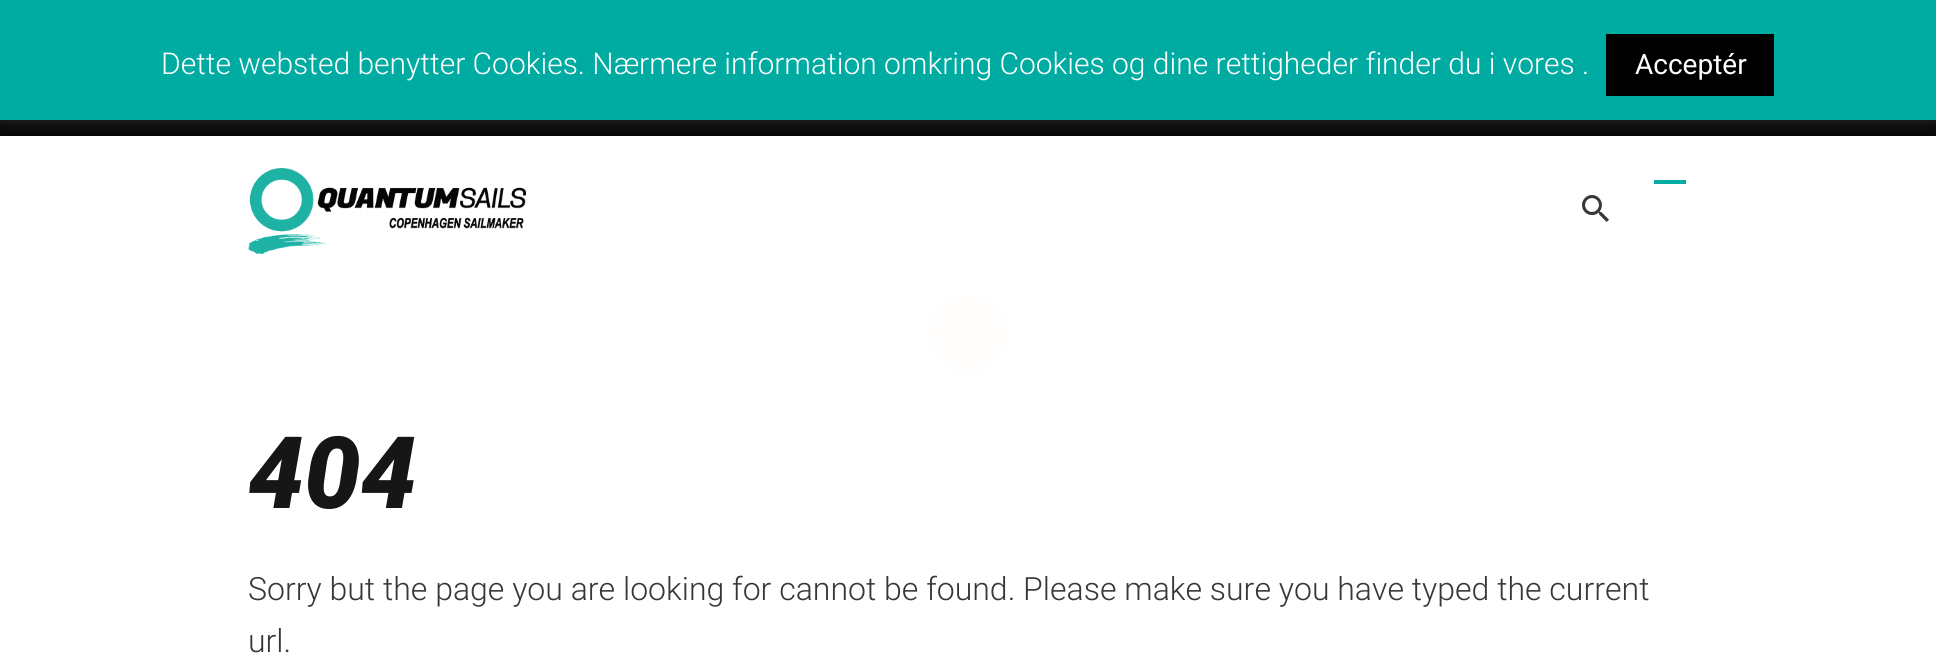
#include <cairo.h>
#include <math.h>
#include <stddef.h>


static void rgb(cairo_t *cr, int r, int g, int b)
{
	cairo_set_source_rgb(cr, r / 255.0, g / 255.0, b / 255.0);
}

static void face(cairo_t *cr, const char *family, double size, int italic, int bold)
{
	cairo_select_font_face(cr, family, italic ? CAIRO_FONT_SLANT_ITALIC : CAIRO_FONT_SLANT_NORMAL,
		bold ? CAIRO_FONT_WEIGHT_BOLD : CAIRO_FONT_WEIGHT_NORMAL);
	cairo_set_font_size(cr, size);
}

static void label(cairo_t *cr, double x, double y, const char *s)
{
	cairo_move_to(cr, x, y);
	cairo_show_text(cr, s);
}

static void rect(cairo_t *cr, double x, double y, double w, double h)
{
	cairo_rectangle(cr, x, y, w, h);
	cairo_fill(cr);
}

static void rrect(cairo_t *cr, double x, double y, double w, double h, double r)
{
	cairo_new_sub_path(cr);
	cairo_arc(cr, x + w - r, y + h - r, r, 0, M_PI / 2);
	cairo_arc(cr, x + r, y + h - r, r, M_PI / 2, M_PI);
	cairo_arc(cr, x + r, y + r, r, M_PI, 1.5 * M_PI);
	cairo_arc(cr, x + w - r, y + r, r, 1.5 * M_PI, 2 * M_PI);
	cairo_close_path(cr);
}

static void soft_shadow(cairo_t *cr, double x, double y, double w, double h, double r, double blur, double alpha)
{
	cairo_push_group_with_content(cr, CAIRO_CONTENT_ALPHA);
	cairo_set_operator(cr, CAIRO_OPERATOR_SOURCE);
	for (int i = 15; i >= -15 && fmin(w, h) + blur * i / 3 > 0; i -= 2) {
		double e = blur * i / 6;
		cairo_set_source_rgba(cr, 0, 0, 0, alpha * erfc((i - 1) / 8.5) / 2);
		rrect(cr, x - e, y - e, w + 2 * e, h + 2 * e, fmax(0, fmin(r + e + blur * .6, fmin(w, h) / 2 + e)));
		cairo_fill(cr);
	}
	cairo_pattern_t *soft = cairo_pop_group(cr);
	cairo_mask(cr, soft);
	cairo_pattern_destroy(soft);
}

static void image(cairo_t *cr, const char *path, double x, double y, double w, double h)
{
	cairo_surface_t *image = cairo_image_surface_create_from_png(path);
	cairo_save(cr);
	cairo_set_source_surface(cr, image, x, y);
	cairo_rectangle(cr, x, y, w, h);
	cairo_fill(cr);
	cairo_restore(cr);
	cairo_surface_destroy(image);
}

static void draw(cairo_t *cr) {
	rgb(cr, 255, 255, 255);
	cairo_paint(cr);
	rgb(cr, 5, 5, 5);
	rect(cr, 0, 120, 1936, 16);
	rgb(cr, 172, 171, 171);
	soft_shadow(cr, 0, -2, 1936, 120, 0, 10, 0.3);
	rgb(cr, 0, 172, 162);
	rect(cr, 0, 0, 1936, 120);
	face(cr, "Roboto Light", 30, 0, 0);
	rgb(cr, 255, 255, 255);
	label(cr, 161, 74, "Dette websted benytter Cookies. Nærmere information omkring Cookies og dine rettigheder finder du i vores .");
	rgb(cr, 0, 0, 0);
	rect(cr, 1606, 34, 168, 62);
	face(cr, "Roboto", 28, 0, 0);
	rgb(cr, 255, 255, 255);
	label(cr, 1635, 74, "Acceptér");
	rgb(cr, 255, 254, 252);
	cairo_new_path(cr);
	cairo_arc(cr, 968, 334, 40, 0, 2 * M_PI);
	cairo_fill(cr);
	image(cr, "image0.png", 248, 168, 278, 86);
	rgb(cr, 5, 174, 164);
	rect(cr, 1654, 180, 32, 4);
	image(cr, "image1.png", 1582, 195, 27, 27);
	face(cr, "Roboto Black", 100, 1, 0);
	rgb(cr, 22, 22, 22);
	label(cr, 248, 508, "404");
	face(cr, "Roboto Light", 32, 0, 0);
	rgb(cr, 55, 55, 55);
	label(cr, 248, 600, "Sorry but the page you are looking for cannot be found. Please make sure you have typed the current");
	label(cr, 248, 652, "url.");
}

int main(void) {
	cairo_surface_t *surface = cairo_image_surface_create(CAIRO_FORMAT_RGB24, 1936, 665);
	cairo_t *cr = cairo_create(surface);
	cairo_font_options_t *options = cairo_font_options_create();
	cairo_font_options_set_hint_metrics(options, CAIRO_HINT_METRICS_OFF);
	cairo_font_options_set_hint_style(options, CAIRO_HINT_STYLE_NONE);
	cairo_set_font_options(cr, options);
	cairo_set_miter_limit(cr, 4);
	draw(cr);
	cairo_surface_write_to_png(surface, "render.png");
	cairo_font_options_destroy(options);
	cairo_destroy(cr);
	cairo_surface_destroy(surface);
	return 0;
}
